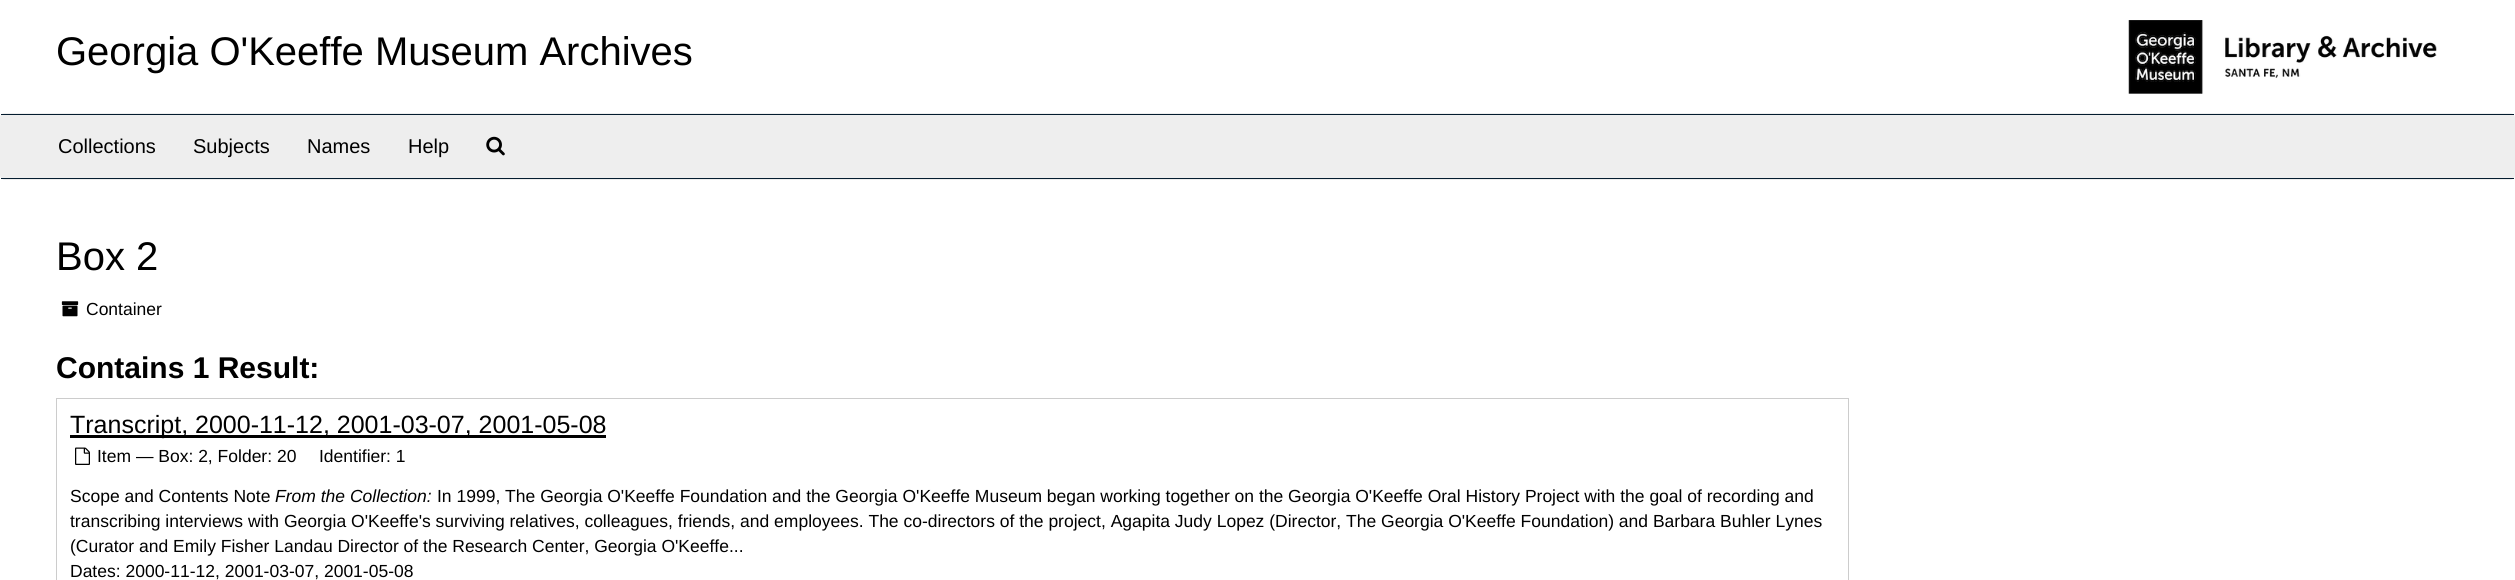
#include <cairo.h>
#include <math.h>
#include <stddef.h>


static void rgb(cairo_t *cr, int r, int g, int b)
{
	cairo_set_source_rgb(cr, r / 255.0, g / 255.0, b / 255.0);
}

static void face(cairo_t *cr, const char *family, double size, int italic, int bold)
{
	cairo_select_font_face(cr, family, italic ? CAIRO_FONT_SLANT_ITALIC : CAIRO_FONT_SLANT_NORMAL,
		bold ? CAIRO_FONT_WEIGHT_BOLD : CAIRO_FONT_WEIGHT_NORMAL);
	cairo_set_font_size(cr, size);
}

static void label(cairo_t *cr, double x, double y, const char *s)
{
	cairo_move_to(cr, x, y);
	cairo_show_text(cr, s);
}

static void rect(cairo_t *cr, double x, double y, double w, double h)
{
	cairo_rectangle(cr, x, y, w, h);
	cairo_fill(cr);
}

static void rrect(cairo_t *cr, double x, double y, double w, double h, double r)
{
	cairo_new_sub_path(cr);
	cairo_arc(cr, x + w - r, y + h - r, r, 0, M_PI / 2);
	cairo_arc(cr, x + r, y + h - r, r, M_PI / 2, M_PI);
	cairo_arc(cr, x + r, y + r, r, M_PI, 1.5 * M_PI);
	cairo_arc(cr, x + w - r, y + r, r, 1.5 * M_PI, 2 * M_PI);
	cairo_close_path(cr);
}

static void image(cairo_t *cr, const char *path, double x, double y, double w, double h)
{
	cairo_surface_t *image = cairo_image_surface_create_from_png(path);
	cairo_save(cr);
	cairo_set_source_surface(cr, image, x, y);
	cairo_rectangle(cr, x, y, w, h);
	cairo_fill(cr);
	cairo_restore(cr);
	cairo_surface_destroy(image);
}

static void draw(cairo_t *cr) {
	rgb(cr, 255, 255, 255);
	cairo_paint(cr);
	face(cr, "Liberation Sans", 40, 0, 0);
	rgb(cr, 0, 0, 0);
	label(cr, 56, 65, "Georgia O'Keeffe Museum Archives");
	image(cr, "image0.png", 2128, 20, 309, 74);
	rrect(cr, 0.5, 113.5, 2514, 66, 4.5);
	rgb(cr, 238, 238, 238);
	cairo_set_line_width(cr, 1);
	cairo_stroke(cr);
	rect(cr, 1, 115, 2513, 63);
	rgb(cr, 4, 28, 47);
	rect(cr, 1, 114, 2513, 1);
	rect(cr, 1, 178, 2513, 1);
	face(cr, "Liberation Sans", 20, 0, 0);
	rgb(cr, 0, 0, 0);
	label(cr, 58, 153, "Collections");
	label(cr, 193, 153, "Subjects");
	label(cr, 307, 153, "Names");
	label(cr, 408, 153, "Help");
	image(cr, "image1.png", 486, 136, 19, 20);
	face(cr, "Liberation Sans", 40, 0, 0);
	label(cr, 56, 270, "Box 2");
	image(cr, "image2.png", 61, 301, 18, 16);
	face(cr, "Liberation Sans", 17.5, 0, 0);
	label(cr, 86, 315, "Container");
	face(cr, "Liberation Sans", 30, 0, 1);
	label(cr, 56, 378, "Contains 1 Result:");
	cairo_rectangle(cr, 56.5, 398.5, 1792, 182);
	rgb(cr, 204, 204, 204);
	cairo_stroke(cr);
	rgb(cr, 0, 0, 0);
	rect(cr, 70, 435, 536, 3);
	face(cr, "Liberation Sans", 25, 0, 0);
	label(cr, 70, 433, "Transcript, 2000-11-12, 2001-03-07, 2001-05-08");
	image(cr, "image3.png", 75, 447, 15, 18);
	face(cr, "Liberation Sans", 17.5, 0, 0);
	label(cr, 97, 462, "Item — Box: 2, Folder: 20");
	label(cr, 319, 462, "Identifier: 1");
	label(cr, 70, 502, "Scope and Contents Note");
	face(cr, "Liberation Sans", 17.5, 1, 0);
	label(cr, 275, 502, "From the Collection:");
	face(cr, "Liberation Sans", 17.5, 0, 0);
	label(cr, 437, 502, "In 1999, The Georgia O'Keeffe Foundation and the Georgia O'Keeffe Museum began working together on the Georgia O'Keeffe Oral History Project with the goal of recording and");
	label(cr, 70, 527, "transcribing interviews with Georgia O'Keeffe's surviving relatives, colleagues, friends, and employees. The co-directors of the project, Agapita Judy Lopez (Director, The Georgia O'Keeffe Foundation) and Barbara Buhler Lynes");
	label(cr, 70, 552, "(Curator and Emily Fisher Landau Director of the Research Center, Georgia O'Keeffe...");
	label(cr, 70, 577, "Dates: 2000-11-12, 2001-03-07, 2001-05-08");
}

int main(void) {
	cairo_surface_t *surface = cairo_image_surface_create(CAIRO_FORMAT_RGB24, 2515, 580);
	cairo_t *cr = cairo_create(surface);
	cairo_font_options_t *options = cairo_font_options_create();
	cairo_font_options_set_hint_metrics(options, CAIRO_HINT_METRICS_OFF);
	cairo_font_options_set_hint_style(options, CAIRO_HINT_STYLE_NONE);
	cairo_set_font_options(cr, options);
	cairo_set_miter_limit(cr, 4);
	draw(cr);
	cairo_surface_write_to_png(surface, "render.png");
	cairo_font_options_destroy(options);
	cairo_destroy(cr);
	cairo_surface_destroy(surface);
	return 0;
}
